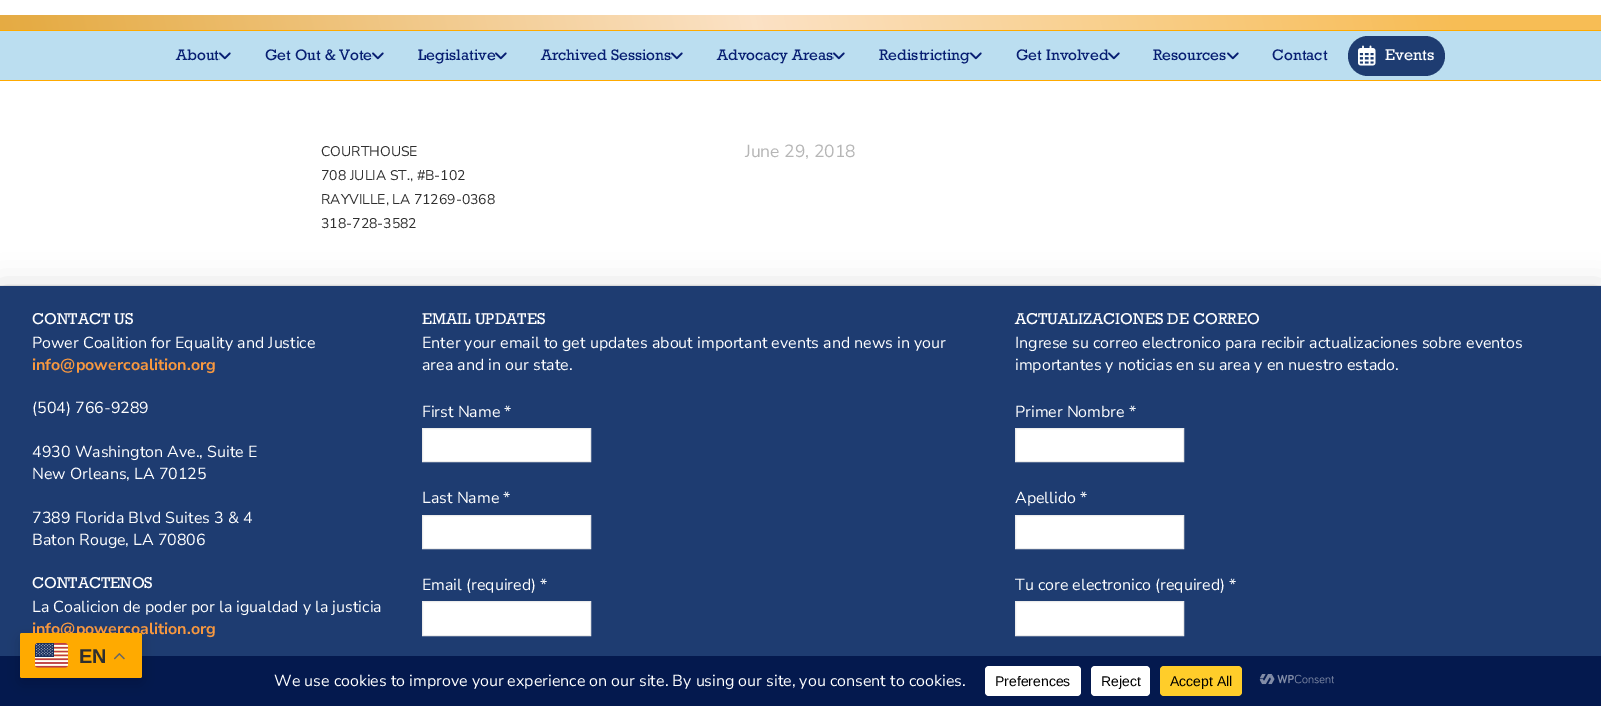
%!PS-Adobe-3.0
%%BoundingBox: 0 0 1601 706
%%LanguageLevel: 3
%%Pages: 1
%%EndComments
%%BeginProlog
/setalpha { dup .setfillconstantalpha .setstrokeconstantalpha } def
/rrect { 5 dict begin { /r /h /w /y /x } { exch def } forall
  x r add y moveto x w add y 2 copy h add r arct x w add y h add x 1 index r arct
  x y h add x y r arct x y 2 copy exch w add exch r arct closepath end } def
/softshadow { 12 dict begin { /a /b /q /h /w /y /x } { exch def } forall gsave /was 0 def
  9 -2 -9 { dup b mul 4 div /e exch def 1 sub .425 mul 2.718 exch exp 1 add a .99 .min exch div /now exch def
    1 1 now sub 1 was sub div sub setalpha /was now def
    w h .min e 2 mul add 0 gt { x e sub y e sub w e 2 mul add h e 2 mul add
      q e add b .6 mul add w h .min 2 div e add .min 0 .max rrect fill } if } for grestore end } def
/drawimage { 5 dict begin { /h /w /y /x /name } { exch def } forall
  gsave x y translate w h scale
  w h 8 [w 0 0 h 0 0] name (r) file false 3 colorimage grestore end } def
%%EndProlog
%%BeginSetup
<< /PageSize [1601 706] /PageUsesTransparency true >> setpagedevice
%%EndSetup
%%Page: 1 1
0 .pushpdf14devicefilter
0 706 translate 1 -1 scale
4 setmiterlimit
1 setgray
0 0 1601 706 rectfill
gsave newpath 0 15 moveto 1601 15 lineto 1601 30 lineto 0 30 lineto closepath clip newpath
<< /ShadingType 2 /ColorSpace /DeviceRGB /Coords [39 198 1562 -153] /Extend [true true] /Function << /FunctionType 3 /Domain [0 1] /Functions [<< /FunctionType 2 /Domain [0 1] /C0 [0.898 0.671 0.263] /C1 [0.984 0.886 0.773] /N 1 >> << /FunctionType 2 /Domain [0 1] /C0 [0.984 0.886 0.773] /C1 [0.969 0.741 0.333] /N 1 >> << /FunctionType 2 /Domain [0 1] /C0 [0.969 0.741 0.333] /C1 [0.969 0.741 0.333] /N 1 >>] /Bounds [0.47 0.92] /Encode [0 1 0 1 0 1] >> >> shfill grestore
gsave newpath 20 15 moveto 1460 15 lineto 1460 30 lineto 20 30 lineto closepath clip newpath
<< /ShadingType 2 /ColorSpace /DeviceRGB /Coords [58 194 1543 -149] /Extend [true true] /Function << /FunctionType 3 /Domain [0 1] /Functions [<< /FunctionType 2 /Domain [0 1] /C0 [0.898 0.671 0.263] /C1 [0.984 0.886 0.773] /N 1 >> << /FunctionType 2 /Domain [0 1] /C0 [0.984 0.886 0.773] /C1 [0.969 0.741 0.333] /N 1 >> << /FunctionType 2 /Domain [0 1] /C0 [0.969 0.741 0.333] /C1 [0.969 0.741 0.333] /N 1 >>] /Bounds [0.47 0.92] /Encode [0 1 0 1 0 1] >> >> shfill grestore
0.733 0.871 0.941 setrgbcolor
0 31 1601 49 rectfill
1 0.667 0 setrgbcolor
0 30 1601 1 rectfill
0 80 1601 1 rectfill
(images/8.raw) 1227 52 12 8 drawimage
0.118 0.235 0.443 setrgbcolor
1348 36 97 40 20 rrect fill
(images/9.raw) 1358 45 18 21 drawimage
0.925 setgray
0 285 1601 1 rectfill
0 setgray
0 288 1601 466 0 16 0.15 softshadow
0.118 0.235 0.443 setrgbcolor
0 286 1601 370 rectfill
1 setgray
newpath 422.5 428.5 moveto 590.5 428.5 lineto 590.5 461.5 lineto 422.5 461.5 lineto closepath gsave fill grestore
0.925 setgray
stroke
1 setgray
newpath 422.5 515.5 moveto 590.5 515.5 lineto 590.5 548.5 lineto 422.5 548.5 lineto closepath gsave fill grestore
0.925 setgray
stroke
1 setgray
newpath 422.5 601.5 moveto 590.5 601.5 lineto 590.5 635.5 lineto 422.5 635.5 lineto closepath gsave fill grestore
0.925 setgray
stroke
1 setgray
newpath 1015.5 428.5 moveto 1183.5 428.5 lineto 1183.5 461.5 lineto 1015.5 461.5 lineto closepath gsave fill grestore
0.925 setgray
stroke
1 setgray
newpath 1015.5 515.5 moveto 1183.5 515.5 lineto 1183.5 548.5 lineto 1015.5 548.5 lineto closepath gsave fill grestore
0.925 setgray
stroke
1 setgray
newpath 1015.5 601.5 moveto 1183.5 601.5 lineto 1183.5 635.5 lineto 1015.5 635.5 lineto closepath gsave fill grestore
0.925 setgray
stroke
0.016 0.098 0.306 setrgbcolor
0 656 1601 50 rectfill
0 setgray
20 638 122 45 2 7.5 0.15 softshadow
1 setgray
985 666 96 30 4 rrect fill
1091 666 59 30 4 rrect fill
1 0.804 0.165 setrgbcolor
1160 666 82 30 4 rrect fill
(images/12.raw) 1259 674 75 11 drawimage
/Rockwell-Regular [15.5 0 0 -15.5 0 0] selectfont
0.027 0.118 0.447 setrgbcolor
176 60 moveto (About) show
(images/1.raw) 219 52 12 8 drawimage
265 60 moveto (Get Out & Vote) show
(images/2.raw) 372 52 12 8 drawimage
418 60 moveto (Legislative) show
(images/3.raw) 495 52 12 8 drawimage
541 60 moveto (Archived Sessions) show
(images/4.raw) 671 52 12 8 drawimage
717 60 moveto (Advocacy Areas) show
(images/5.raw) 833 52 12 8 drawimage
879 60 moveto (Redistricting) show
(images/6.raw) 970 52 12 8 drawimage
1016 60 moveto (Get Involved) show
(images/7.raw) 1108 52 12 8 drawimage
1153 60 moveto (Resources) show
1272 60 moveto (Contact) show
/Rockwell-Regular [16 0 0 -16 0 0] selectfont
1 setgray
1385 60 moveto (Events) show
/NunitoSans-Regular [14 0 0 -14 0 0] selectfont
0.184 setgray
321 156 moveto (COURTHOUSE) show
321 180 moveto (708 JULIA ST., #B-102) show
321 204 moveto (RAYVILLE, LA 71269-0368) show
321 228 moveto (318-728-3582) show
/NunitoSans-Regular [17.5 0 0 -17.5 0 0] selectfont
0.714 setgray
745 157 moveto (June 29, 2018) show
/Rockwell-Regular [16 0 0 -16 0 0] selectfont
1 setgray
32 324 moveto (CONTACT US) show
/NunitoSans-Regular [16 0 0 -16 0 0] selectfont
32 348 moveto (Power Coalition for Equality and Justice) show
/NunitoSans-Bold [16 0 0 -16 0 0] selectfont
0.973 0.596 0.247 setrgbcolor
32 370 moveto (info@powercoalition.org) show
/NunitoSans-Regular [16 0 0 -16 0 0] selectfont
1 setgray
32 413 moveto (\(504\) 766-9289) show
32 457 moveto (4930 Washington Ave., Suite E) show
32 479 moveto (New Orleans, LA 70125) show
32 523 moveto (7389 Florida Blvd Suites 3 & 4) show
32 545 moveto (Baton Rouge, LA 70806) show
/Rockwell-Regular [16 0 0 -16 0 0] selectfont
32 588 moveto (CONTACTENOS) show
/NunitoSans-Regular [16 0 0 -16 0 0] selectfont
32 612 moveto (La Coalicion de poder por la igualdad y la justicia) show
/NunitoSans-Bold [16 0 0 -16 0 0] selectfont
0.973 0.596 0.247 setrgbcolor
32 634 moveto (info@powercoalition.org) show
/Rockwell-Regular [16 0 0 -16 0 0] selectfont
1 setgray
422 324 moveto (EMAIL UPDATES) show
/NunitoSans-Regular [16 0 0 -16 0 0] selectfont
422 348 moveto (Enter your email to get updates about important events and news in your) show
422 370 moveto (area and in our state.) show
422 417 moveto (First Name *) show
422 503 moveto (Last Name *) show
422 590 moveto (Email \(required\) *) show
/Rockwell-Regular [16 0 0 -16 0 0] selectfont
1015 324 moveto (ACTUALIZACIONES DE CORREO) show
/NunitoSans-Regular [16 0 0 -16 0 0] selectfont
1015 348 moveto (Ingrese su correo electronico para recibir actualizaciones sobre eventos) show
1015 370 moveto (importantes y noticias en su area y en nuestro estado.) show
1015 417 moveto (Primer Nombre *) show
1015 503 moveto (Apellido *) show
1015 590 moveto (Tu core electronico \(required\) *) show
1 0.667 0 setrgbcolor
20 633 122 45 2 rrect fill
(images/10.raw) 35 643 33 25 drawimage
/LiberationSans-Bold [20 0 0 -20 0 0] selectfont
0.184 setgray
79 663 moveto (EN) show
(images/11.raw) 114 653 11 7 drawimage
/NunitoSans-Regular [16 0 0 -16 0 0] selectfont
1 setgray
274 686 moveto (We use cookies to improve your experience on our site. By using our site, you consent to cookies.) show
/LiberationSans-Regular [14 0 0 -14 0 0] selectfont
0 setgray
995 686 moveto (Preferences) show
1101 686 moveto (Reject) show
1170 686 moveto (Accept All) show
.poppdf14devicefilter showpage
%%EOF
